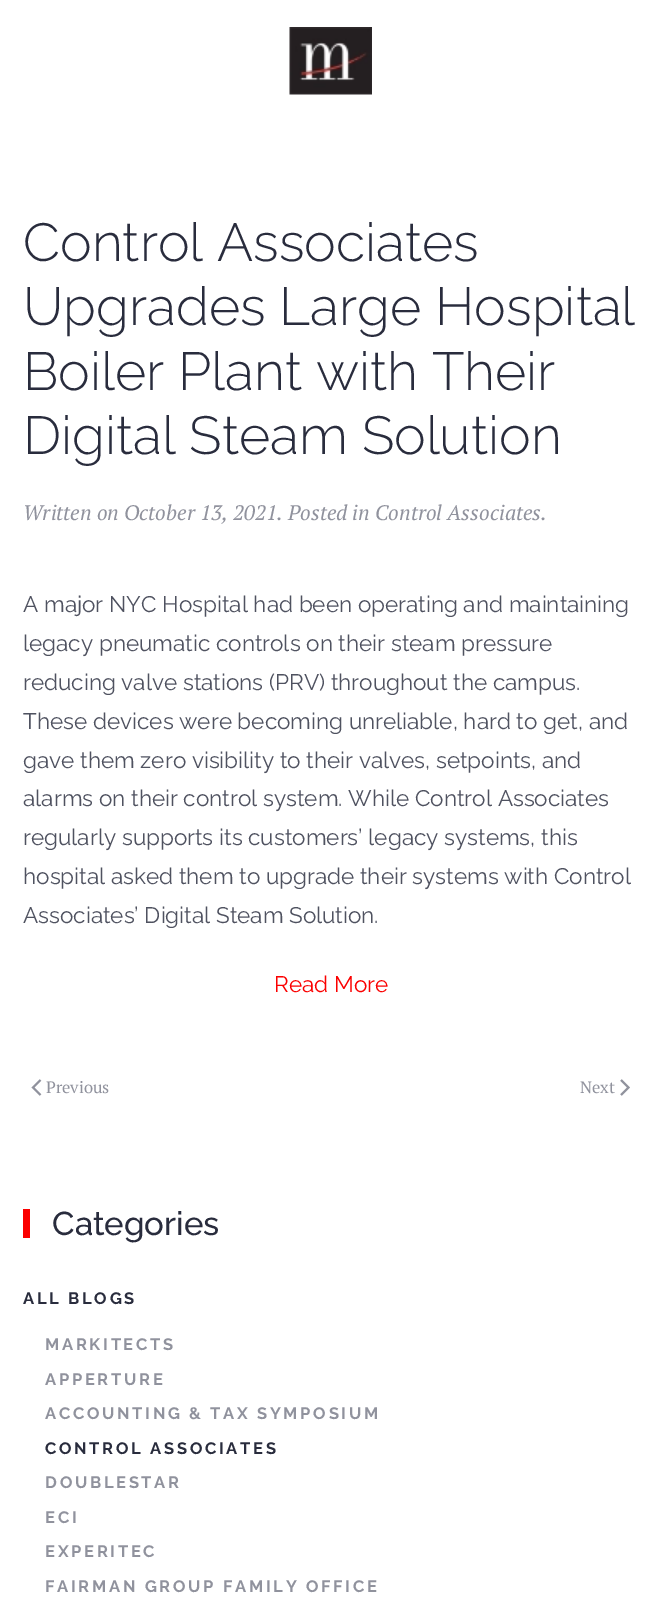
%!PS-Adobe-3.0
%%BoundingBox: 0 0 661 1609
%%LanguageLevel: 3
%%Pages: 1
%%EndComments
%%BeginProlog
/drawimage { 5 dict begin { /h /w /y /x /name } { exch def } forall
  gsave x y translate w h scale
  w h 8 [w 0 0 h 0 0] name (r) file false 3 colorimage grestore end } def
%%EndProlog
%%BeginSetup
<< /PageSize [661 1609] >> setpagedevice
%%EndSetup
%%Page: 1 1
0 1609 translate 1 -1 scale
4 setmiterlimit
1 setgray
0 0 661 1609 rectfill
(images/1.raw) 289 27 83 68 drawimage
0.565 0.573 0.616 setrgbcolor
1.8 setlinewidth
newpath 40.5 1080 moveto 33 1087.5 lineto 40.5 1095 lineto stroke
newpath 621 1080 moveto 628.5 1087.5 lineto 621 1095 lineto stroke
0.984 0 0 setrgbcolor
23 1209 7 29 rectfill
/Raleway-Thin [53.5 0 0 -53.5 0 0] selectfont
0.161 0.173 0.239 setrgbcolor
23 261 moveto (Control Associates) show
23 325 moveto (Upgrades Large Hospital) show
23 390 moveto (Boiler Plant with Their) show
23 454 moveto (Digital Steam Solution) show
/PTSerif-Italic [21 0 0 -21 0 0] selectfont
0.565 0.573 0.616 setrgbcolor
23 520 moveto (Written on October 13, 2021. Posted in Control Associates.) show
/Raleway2-Thin [22.5 0 0 -22.5 0 0] selectfont
0.31 0.322 0.376 setrgbcolor
23 612 moveto (A major NYC Hospital had been operating and maintaining) show
23 651 moveto (legacy pneumatic controls on their steam pressure) show
23 690 moveto (reducing valve stations \(PRV\) throughout the campus.) show
23 729 moveto (These devices were becoming unreliable, hard to get, and) show
23 768 moveto (gave them zero visibility to their valves, setpoints, and) show
23 806 moveto (alarms on their control system. While Control Associates) show
23 845 moveto (regularly supports its customers’ legacy systems, this) show
23 884 moveto (hospital asked them to upgrade their systems with Control) show
23 923 moveto (Associates’ Digital Steam Solution.) show
0.984 0 0 setrgbcolor
274 992 moveto (Read More) show
/PTSerif-Regular [16.5 0 0 -16.5 0 0] selectfont
0.565 0.573 0.616 setrgbcolor
46 1093 moveto (Previous) show
580 1093 moveto (Next) show
/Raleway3-Thin [33 0 0 -33 0 0] selectfont
0.161 0.173 0.239 setrgbcolor
52 1235 moveto (Categories) show
/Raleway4-Thin [16.5 0 0 -16.5 0 0] selectfont
23 1304 moveto 2.7 0 (ALL BLOGS) ashow
0.565 0.573 0.616 setrgbcolor
45 1350 moveto 2.7 0 (MARKITECTS) ashow
45 1385 moveto 2.7 0 (APPERTURE) ashow
45 1419 moveto 2.7 0 (ACCOUNTING & TAX SYMPOSIUM) ashow
0.161 0.173 0.239 setrgbcolor
45 1454 moveto 2.7 0 (CONTROL ASSOCIATES) ashow
0.565 0.573 0.616 setrgbcolor
45 1488 moveto 2.7 0 (DOUBLESTAR) ashow
45 1523 moveto 2.7 0 (ECI) ashow
45 1557 moveto 2.7 0 (EXPERITEC) ashow
45 1592 moveto 2.7 0 (FAIRMAN GROUP FAMILY OFFICE) ashow
showpage
%%EOF
